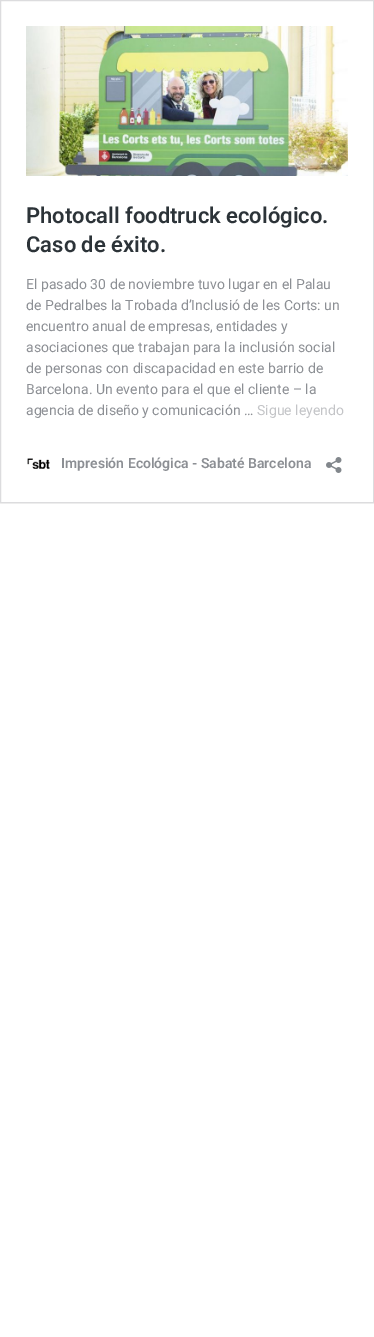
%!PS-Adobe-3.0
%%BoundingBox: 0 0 374 1337
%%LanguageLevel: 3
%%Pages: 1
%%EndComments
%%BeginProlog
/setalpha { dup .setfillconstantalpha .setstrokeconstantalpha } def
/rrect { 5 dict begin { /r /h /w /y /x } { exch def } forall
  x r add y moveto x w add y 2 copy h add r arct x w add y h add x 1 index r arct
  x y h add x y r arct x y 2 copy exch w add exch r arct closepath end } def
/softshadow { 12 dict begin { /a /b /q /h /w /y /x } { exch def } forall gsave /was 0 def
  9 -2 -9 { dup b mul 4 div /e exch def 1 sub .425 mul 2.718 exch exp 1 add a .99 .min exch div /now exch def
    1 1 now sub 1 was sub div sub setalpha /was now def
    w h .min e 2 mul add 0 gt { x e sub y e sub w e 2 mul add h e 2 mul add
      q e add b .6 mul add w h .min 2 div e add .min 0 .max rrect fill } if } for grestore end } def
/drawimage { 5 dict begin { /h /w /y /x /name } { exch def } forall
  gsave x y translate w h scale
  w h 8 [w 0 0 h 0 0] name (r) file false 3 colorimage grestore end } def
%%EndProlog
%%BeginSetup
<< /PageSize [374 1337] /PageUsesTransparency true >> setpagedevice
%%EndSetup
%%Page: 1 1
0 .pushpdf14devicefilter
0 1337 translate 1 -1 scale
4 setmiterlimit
1 setgray
0 0 374 1337 rectfill
gsave
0 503 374 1 rectclip
0 setgray
0 1 374 503 0 0.5 0.05 softshadow
grestore
0.863 0.863 0.871 setrgbcolor
0.5 0.5 373 502 rectstroke
(images/1.raw) 26 26 322 150 drawimage
(images/2.raw) 27 458 23 11 drawimage
(images/3.raw) 326 457 16 16 drawimage
/Roboto-SemiBold [22 0 0 -22 0 0] selectfont
0.173 0.2 0.22 setrgbcolor
26 223 moveto (Photocall foodtruck ecológico.) show
26 252 moveto (Caso de éxito.) show
/Roboto-Regular [14 0 0 -14 0 0] selectfont
0.549 0.561 0.58 setrgbcolor
26 289 moveto (El pasado 30 de noviembre tuvo lugar en el Palau) show
26 310 moveto (de Pedralbes la Trobada d’Inclusió de les Corts: un) show
26 331 moveto (encuentro anual de empresas, entidades y) show
26 352 moveto (asociaciones que trabajan para la inclusión social) show
26 373 moveto (de personas con discapacidad en este barrio de) show
26 394 moveto (Barcelona. Un evento para el que el cliente – la) show
26 415 moveto (agencia de diseño y comunicación …) show
0.765 0.769 0.78 setrgbcolor
257 415 moveto (Sigue leyendo) show
/Roboto-SemiBold [14 0 0 -14 0 0] selectfont
0.549 0.561 0.58 setrgbcolor
61 468 moveto (Impresión Ecológica - Sabaté Barcelona) show
.poppdf14devicefilter showpage
%%EOF
